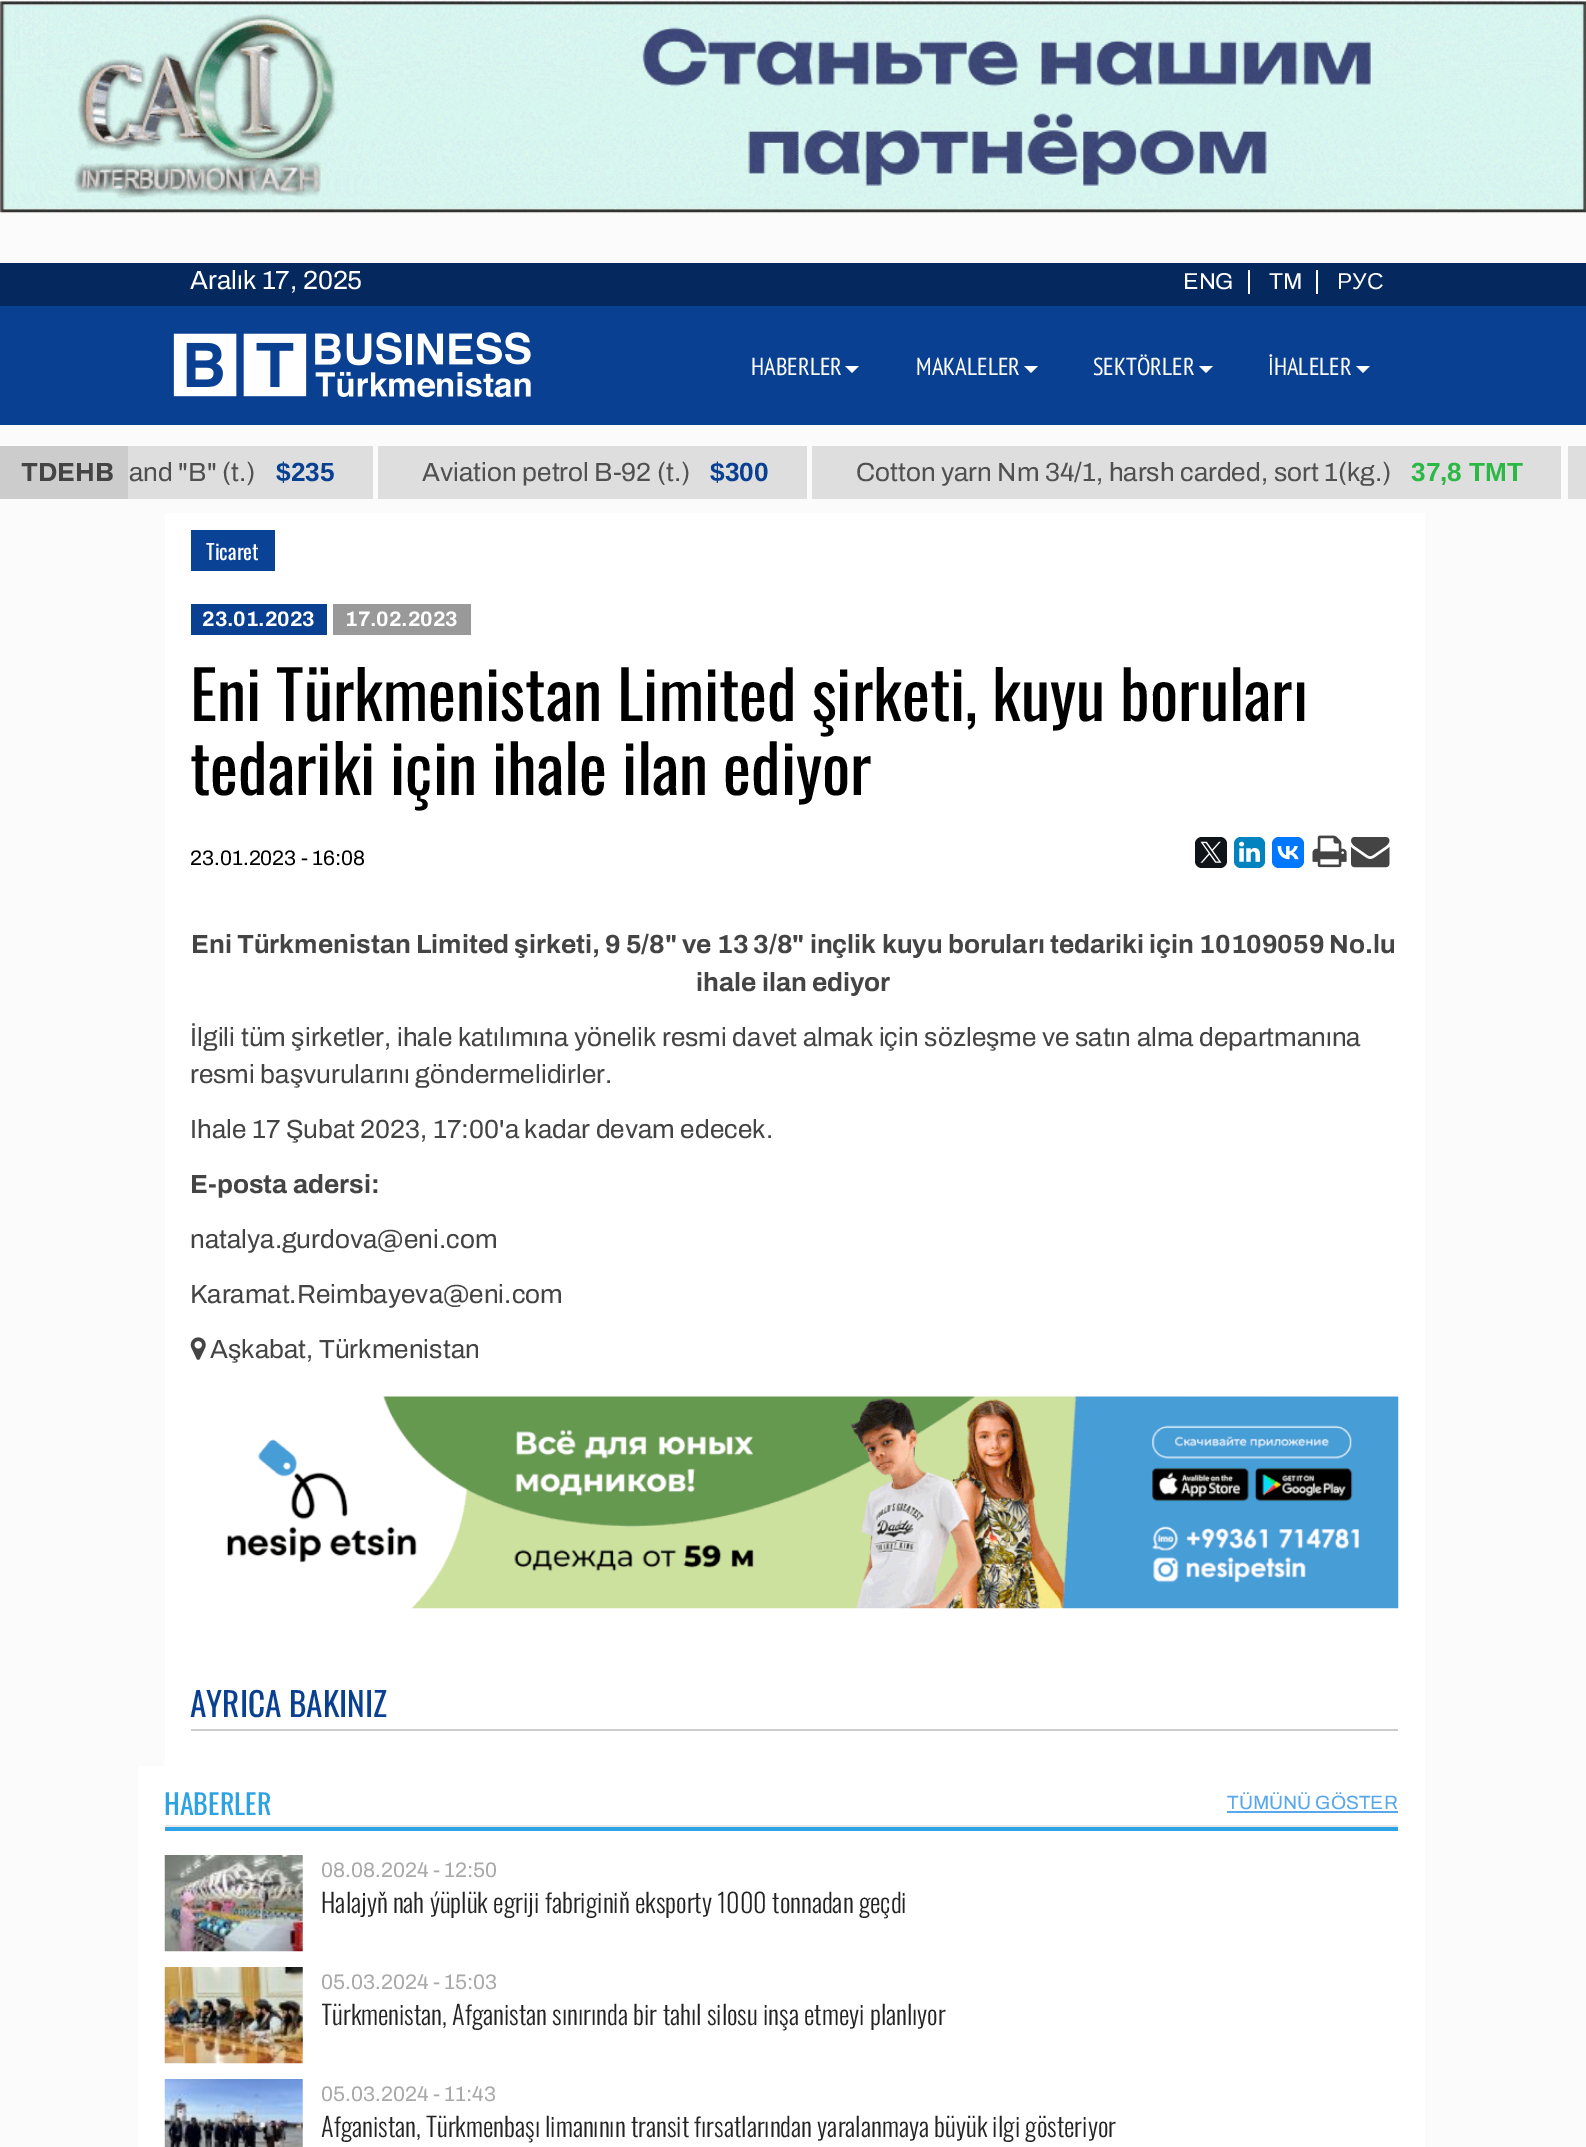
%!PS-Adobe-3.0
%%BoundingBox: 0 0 1586 2147
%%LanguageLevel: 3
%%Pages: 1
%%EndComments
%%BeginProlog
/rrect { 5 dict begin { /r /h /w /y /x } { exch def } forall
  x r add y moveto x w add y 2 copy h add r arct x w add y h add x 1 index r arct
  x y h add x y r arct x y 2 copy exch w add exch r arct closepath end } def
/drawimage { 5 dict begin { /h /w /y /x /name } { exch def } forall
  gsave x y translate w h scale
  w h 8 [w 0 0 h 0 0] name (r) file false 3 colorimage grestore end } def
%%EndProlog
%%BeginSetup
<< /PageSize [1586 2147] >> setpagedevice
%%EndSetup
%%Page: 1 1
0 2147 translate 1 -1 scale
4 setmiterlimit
0.984 setgray
0 0 1586 2147 rectfill
(images/1.raw) 0 0 1586 214 drawimage
0.035 0.251 0.569 setrgbcolor
0 306 1586 119 rectfill
0.02 0.161 0.373 setrgbcolor
0 263 1586 43 rectfill
1 setgray
1248 270 2 24 rectfill
1316 270 2 24 rectfill
(images/2.raw) 173 332 358 66 drawimage
newpath 845 366 moveto 859 366 lineto 852 373 lineto closepath fill
newpath 1024 366 moveto 1038 366 lineto 1031 373 lineto closepath fill
newpath 1199 366 moveto 1213 366 lineto 1206 373 lineto closepath fill
newpath 1356 366 moveto 1370 366 lineto 1363 373 lineto closepath fill
0.8 setgray
0 446 128 53 rectfill
0.871 setgray
128 446 245 53 rectfill
378 446 429 53 rectfill
812 446 749 53 rectfill
1568 446 18 53 rectfill
1 setgray
165 513 1260 1253 rectfill
0.039 0.263 0.588 setrgbcolor
191 530 84 41 rectfill
0.035 0.251 0.569 setrgbcolor
191 604 136 31 rectfill
0.6 setgray
333 604 138 31 rectfill
0.059 0.078 0.098 setrgbcolor
1195 837 32 31 7 rrect fill
(images/3.raw) 1200 841 22 22 drawimage
0 0.514 0.745 setrgbcolor
1234 837 31 31 7 rrect fill
(images/4.raw) 1239 841 21 21 drawimage
0 0.467 1 setrgbcolor
1272 837 32 31 7 rrect fill
(images/5.raw) 1277 846 22 14 drawimage
(images/6.raw) 1312 835 35 33 drawimage
(images/7.raw) 1351 837 39 31 drawimage
(images/8.raw) 190 1337 16 23 drawimage
(images/9.raw) 226 1396 1173 213 drawimage
0.8 setgray
191 1729 1207 2 rectfill
1 setgray
138 1766 1287 381 rectfill
0.176 0.635 0.898 setrgbcolor
165 1827 1233 4 rectfill
0.906 setgray
165 1825 1233 2 rectfill
0.341 0.655 0.925 setrgbcolor
1227 1811 171 2 rectfill
(images/10.raw) 164 1855 139 97 drawimage
(images/11.raw) 164 1967 139 97 drawimage
(images/12.raw) 164 2079 139 68 drawimage
/Archivo-Regular [26.25 0 0 -26.25 0 0] selectfont
1 setgray
190 289 moveto (Aralık 17, 2025) show
/Archivo-Regular [23 0 0 -23 0 0] selectfont
1183 289 moveto (ENG) show
1269 289 moveto (TM) show
/LiberationSans-Regular [23 0 0 -23 0 0] selectfont
1337 289 moveto (РУС) show
/PTSansNarrow-Regular [24.5 0 0 -24.5 0 0] selectfont
751 375 moveto (HABERLER) show
916 375 moveto (MAKALELER) show
1093 375 moveto (SEKTÖRLER) show
1268 375 moveto (İHALELER) show
/Archivo-Bold [26.25 0 0 -26.25 0 0] selectfont
0.267 setgray
21 481 moveto (TDEHB) show
/Archivo-Regular [26.25 0 0 -26.25 0 0] selectfont
0.314 setgray
129 481 moveto (and "B" \(t.\)) show
/LiberationSans-Bold [26.25 0 0 -26.25 0 0] selectfont
0.035 0.251 0.569 setrgbcolor
276 481 moveto ($235) show
/Archivo-Regular [26.25 0 0 -26.25 0 0] selectfont
0.314 setgray
422 481 moveto (Aviation petrol B-92 \(t.\)) show
/LiberationSans-Bold [26.25 0 0 -26.25 0 0] selectfont
0.035 0.251 0.569 setrgbcolor
710 481 moveto ($300) show
/Archivo-Regular [26.25 0 0 -26.25 0 0] selectfont
0.314 setgray
856 481 moveto (Cotton yarn Nm 34/1, harsh carded, sort 1\(kg.\)) show
/LiberationSans-Bold [26.25 0 0 -26.25 0 0] selectfont
0.169 0.722 0.271 setrgbcolor
1411 481 moveto (37,8 ТМТ) show
/Oswald-Regular [21 0 0 -21 0 0] selectfont
1 setgray
206 560 moveto (Ticaret) show
/Archivo-Bold [21 0 0 -21 0 0] selectfont
202 626 moveto (23.01.2023) show
345 626 moveto (17.02.2023) show
/Oswald-Regular [66.5 0 0 -66.5 0 0] selectfont
0 setgray
190 721 moveto -0.5 0 32 (Eni Türkmenistan Limited şirketi, kuyu boruları) widthshow
190 795 moveto -0.5 0 32 (tedariki için ihale ilan ediyor) widthshow
/Archivo-Regular [21 0 0 -21 0 0] selectfont
190 865 moveto (23.01.2023 - 16:08) show
/Archivo-Bold [26.25 0 0 -26.25 0 0] selectfont
0.267 setgray
191 953 moveto (Eni Türkmenistan Limited şirketi, 9 5/8" ve 13 3/8" inçlik kuyu boruları tedariki için 10109059 No.lu) show
696 991 moveto (ihale ilan ediyor) show
/Archivo-Regular [26.25 0 0 -26.25 0 0] selectfont
190 1046 moveto (İlgili tüm şirketler, ihale katılımına yönelik resmi davet almak için sözleşme ve satın alma departmanına) show
190 1083 moveto (resmi başvurularını göndermelidirler.) show
190 1138 moveto (Ihale 17 Şubat 2023, 17:00'a kadar devam edecek.) show
/Archivo-Bold [26.25 0 0 -26.25 0 0] selectfont
190 1193 moveto (E-posta adersi:) show
/Archivo-Regular [26.25 0 0 -26.25 0 0] selectfont
190 1248 moveto (natalya.gurdova@eni.com) show
190 1303 moveto (Karamat.Reimbayeva@eni.com) show
210 1358 moveto (Aşkabat, Türkmenistan) show
/Oswald-Regular [33.25 0 0 -33.25 0 0] selectfont
0.035 0.251 0.569 setrgbcolor
190 1717 moveto (AYRICA BAKINIZ) show
/Oswald-Regular [28 0 0 -28 0 0] selectfont
0.176 0.635 0.898 setrgbcolor
164 1815 moveto (HABERLER) show
/Archivo-Regular [19.25 0 0 -19.25 0 0] selectfont
0.341 0.655 0.925 setrgbcolor
1227 1809 moveto (TÜMÜNÜ GÖSTER) show
/Archivo-Regular [21 0 0 -21 0 0] selectfont
0.663 setgray
321 1877 moveto (08.08.2024 - 12:50) show
/Oswald-Light [26.25 0 0 -26.25 0 0] selectfont
0.137 setgray
321 1913 moveto (Halajyň nah ýüplük egriji fabriginiň eksporty 1000 tonnadan geçdi) show
/Archivo-Regular [21 0 0 -21 0 0] selectfont
0.663 setgray
321 1989 moveto (05.03.2024 - 15:03) show
gsave
322 1967 1076 67 rectclip
/Oswald-Light [26.25 0 0 -26.25 0 0] selectfont
0.137 setgray
321 2025 moveto (Türkmenistan, Afganistan sınırında bir tahıl silosu inşa etmeyi planlıyor) show
grestore
321 2101 moveto (05.03.2024 - 11:43) show
/Oswald-Light [26.25 0 0 -26.25 0 0] selectfont
0.137 setgray
321 2137 moveto (Afganistan, Türkmenbaşı limanının transit fırsatlarından yaralanmaya büyük ilgi gösteriyor) show
showpage
%%EOF
